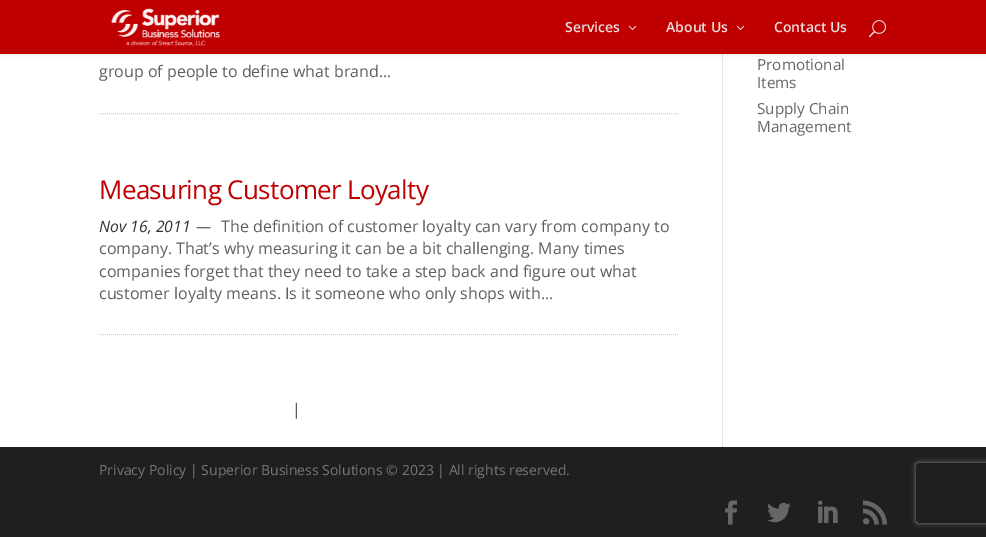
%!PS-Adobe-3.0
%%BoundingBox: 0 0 986 537
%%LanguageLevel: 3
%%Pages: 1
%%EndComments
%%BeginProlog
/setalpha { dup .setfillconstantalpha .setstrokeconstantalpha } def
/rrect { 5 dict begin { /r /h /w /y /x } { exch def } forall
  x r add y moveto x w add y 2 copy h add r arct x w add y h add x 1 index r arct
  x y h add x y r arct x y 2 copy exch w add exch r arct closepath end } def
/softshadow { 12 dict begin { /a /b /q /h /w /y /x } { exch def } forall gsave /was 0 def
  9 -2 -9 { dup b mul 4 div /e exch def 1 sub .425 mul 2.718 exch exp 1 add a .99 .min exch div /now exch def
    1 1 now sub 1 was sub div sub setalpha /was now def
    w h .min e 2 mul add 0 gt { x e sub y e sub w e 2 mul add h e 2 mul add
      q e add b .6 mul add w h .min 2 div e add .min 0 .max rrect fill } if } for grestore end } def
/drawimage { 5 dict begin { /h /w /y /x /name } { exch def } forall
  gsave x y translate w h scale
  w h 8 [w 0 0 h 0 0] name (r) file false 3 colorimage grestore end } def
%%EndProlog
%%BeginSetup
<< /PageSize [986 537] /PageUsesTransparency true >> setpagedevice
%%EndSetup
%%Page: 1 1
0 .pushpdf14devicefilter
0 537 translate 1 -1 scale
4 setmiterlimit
1 setgray
0 0 986 537 rectfill
0.886 setgray
722 54 1 393 rectfill
0 setgray
0 0 986 54 0 3.5 0.1 softshadow
0.753 0 0 setrgbcolor
0 0 986 54 rectfill
(images/1.raw) 111 8 109 38 drawimage
(images/2.raw) 628 25 9 5 drawimage
(images/2.raw) 736 25 9 5 drawimage
(images/3.raw) 869 20 17 18 drawimage
0.8 setgray
[1 1] 0 setdash
newpath 99 113.5 moveto 679 113.5 lineto stroke
newpath 99 334.5 moveto 679 334.5 lineto stroke
0.122 setgray
0 447 986 90 rectfill
(images/4.raw) 725 500 12 25 drawimage
(images/5.raw) 767 502 24 21 drawimage
(images/6.raw) 818 500 20 23 drawimage
(images/7.raw) 863 500 24 25 drawimage
gsave
newpath 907 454 moveto 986 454 lineto 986 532 lineto 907 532 lineto closepath 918 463 moveto 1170 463 lineto 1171 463 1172 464 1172 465 curveto 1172 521 lineto 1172 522 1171 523 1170 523 curveto 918 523 lineto 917 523 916 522 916 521 curveto 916 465 lineto 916 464 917 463 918 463 curveto closepath eoclip newpath
0.502 setgray
916 463 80 60 2 2.5 1 softshadow
grestore
/OpenSans-SemiBold [14 0 0 -14 0 0] selectfont
0.914 0.878 0.871 setrgbcolor
565 32 moveto (Services) show
666 32 moveto (About Us) show
774 32 moveto (Contact Us) show
/OpenSans-Regular [16 0 0 -16 0 0] selectfont
0.365 setgray
99 77 moveto (group of people to define what brand...) show
/OpenSans-Regular [26 0 0 -26 0 0] selectfont
0.753 0 0 setrgbcolor
99 199 moveto -0.65 0 (Measuring Customer Loyalty) ashow
/OpenSans-Italic [15.75 0 0 -15.75 0 0] selectfont
0.2 setgray
99 232 moveto (Nov 16, 2011) show
196 232 moveto (—) show
/OpenSans-Regular [16 0 0 -16 0 0] selectfont
0.365 setgray
221 232 moveto (The definition of customer loyalty can vary from company to) show
99 254 moveto (company. That’s why measuring it can be a bit challenging. Many times) show
99 277 moveto (companies forget that they need to take a step back and figure out what) show
99 299 moveto (customer loyalty means. Is it someone who only shops with...) show
292 415 moveto (|) show
/OpenSans-Regular [15.25 0 0 -15.25 0 0] selectfont
0.4 setgray
757 70 moveto (Promotional) show
757 88 moveto (Items) show
757 114 moveto (Supply Chain) show
757 132 moveto (Management) show
/OpenSans-Regular [14 0 0 -14 0 0] selectfont
0.467 setgray
99 475 moveto (Privacy Policy) show
190 475 moveto (| Superior Business Solutions © 2023 | All rights reserved.) show
.poppdf14devicefilter showpage
%%EOF
